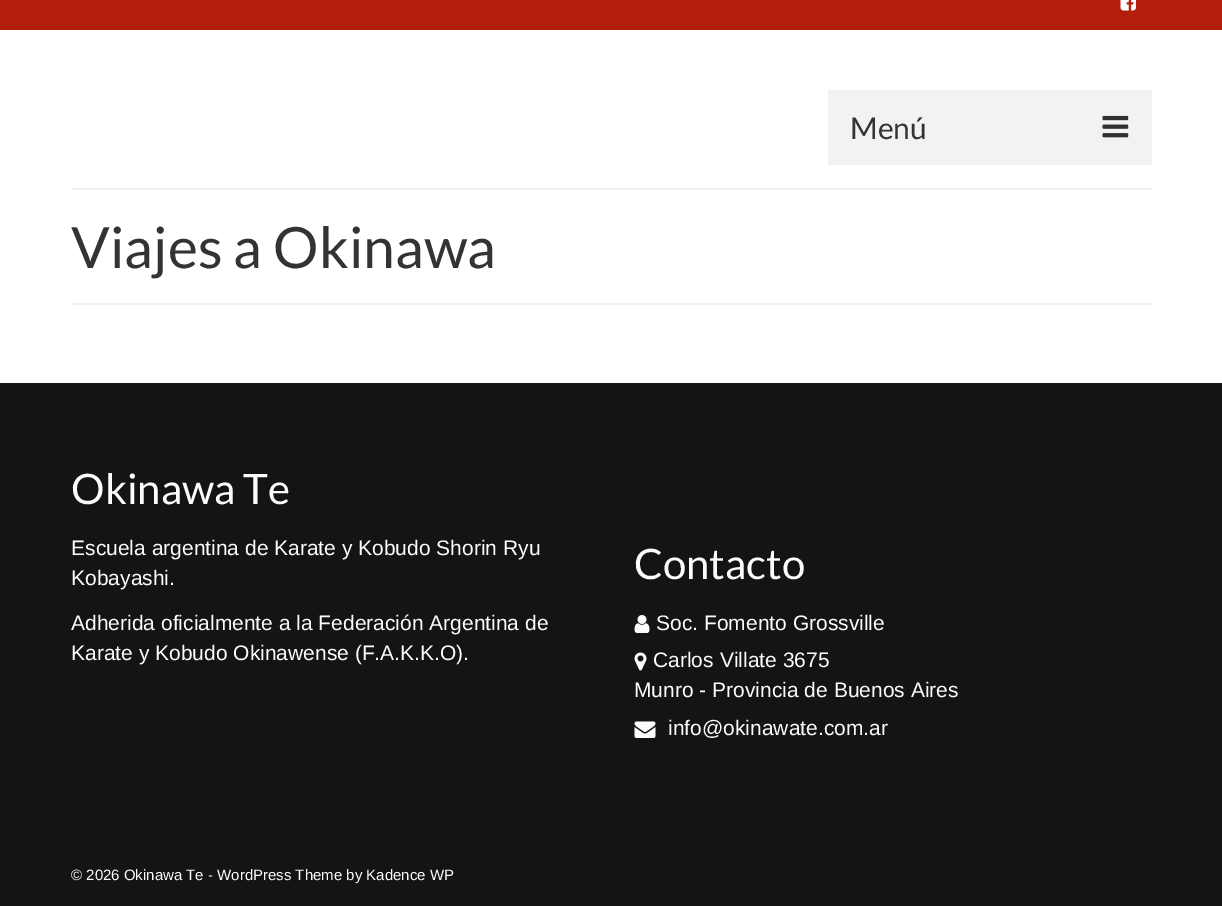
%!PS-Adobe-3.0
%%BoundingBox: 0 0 1222 906
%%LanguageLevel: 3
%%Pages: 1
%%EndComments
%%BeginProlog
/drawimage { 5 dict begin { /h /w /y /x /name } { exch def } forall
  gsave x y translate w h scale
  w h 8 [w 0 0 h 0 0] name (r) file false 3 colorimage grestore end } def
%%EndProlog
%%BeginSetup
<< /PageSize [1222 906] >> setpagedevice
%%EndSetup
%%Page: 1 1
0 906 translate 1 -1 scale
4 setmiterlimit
1 setgray
0 0 1222 906 rectfill
0.698 0.114 0.047 setrgbcolor
0 0 1222 30 rectfill
(images/1.raw) 1120 0 16 11 drawimage
0.949 setgray
828 90 324 75 rectfill
(images/2.raw) 1102 115 27 23 drawimage
72 188 1080 2 rectfill
72 303 1080 2 rectfill
0.078 setgray
0 383 1222 523 rectfill
(images/3.raw) 634 615 16 18 drawimage
(images/4.raw) 634 652 13 19 drawimage
(images/5.raw) 634 721 22 17 drawimage
/Lato-Regular [30 0 0 -30 0 0] selectfont
0.2 setgray
850 139 moveto (Menú) show
/Lato-Regular [57 0 0 -57 0 0] selectfont
71 268 moveto (Viajes a Okinawa) show
/Lato-Regular [42 0 0 -42 0 0] selectfont
0.988 setgray
71 504 moveto (Okinawa Te) show
/LiberationSans-Regular [21 0 0 -21 0 0] selectfont
71 555 moveto (Escuela argentina de Karate y Kobudo Shorin Ryu) show
71 585 moveto (Kobayashi.) show
71 630 moveto (Adherida oficialmente a la Federación Argentina de) show
71 660 moveto (Karate y Kobudo Okinawense \(F.A.K.K.O\).) show
/Lato-Regular [42 0 0 -42 0 0] selectfont
634 579 moveto (Contacto) show
/LiberationSans-Regular [21 0 0 -21 0 0] selectfont
656 630 moveto (Soc. Fomento Grossville) show
653 667 moveto (Carlos Villate 3675) show
634 697 moveto (Munro - Provincia de Buenos Aires) show
668 735 moveto (info@okinawate.com.ar) show
/LiberationSans-Regular [15 0 0 -15 0 0] selectfont
71 880 moveto (© 2026 Okinawa Te - WordPress Theme by Kadence WP) show
showpage
%%EOF
